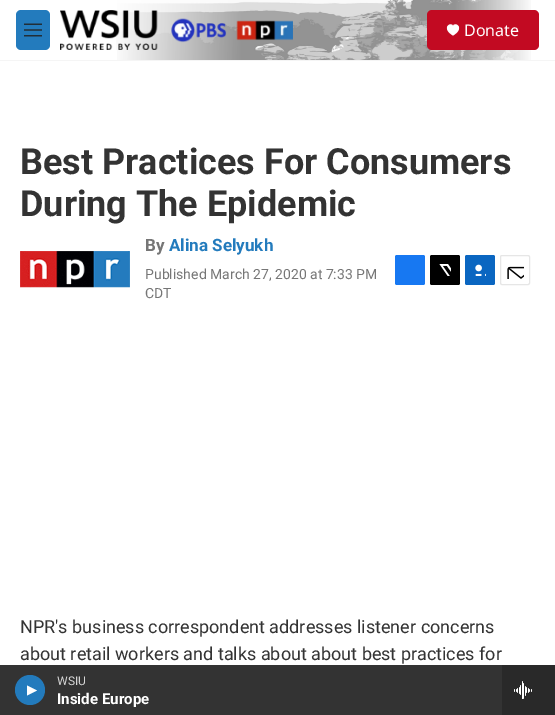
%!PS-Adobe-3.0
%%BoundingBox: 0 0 555 715
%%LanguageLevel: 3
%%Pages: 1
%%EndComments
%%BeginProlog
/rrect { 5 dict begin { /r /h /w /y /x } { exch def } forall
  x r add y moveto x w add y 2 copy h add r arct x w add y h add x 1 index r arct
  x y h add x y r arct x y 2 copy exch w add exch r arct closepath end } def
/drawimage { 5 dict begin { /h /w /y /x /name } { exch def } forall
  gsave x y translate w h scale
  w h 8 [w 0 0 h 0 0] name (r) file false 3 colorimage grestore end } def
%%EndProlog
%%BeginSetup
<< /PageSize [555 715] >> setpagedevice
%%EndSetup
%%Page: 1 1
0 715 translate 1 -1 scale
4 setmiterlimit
1 setgray
0 0 555 715 rectfill
0.961 setgray
0 60 555 1 rectfill
(images/1.raw) 117 0 414 60 drawimage
0.137 0.482 0.741 setrgbcolor
16 10 34 40 5 rrect fill
(images/2.raw) 24 23 18 14 drawimage
(images/3.raw) 60 10 233 40 drawimage
0.761 0.039 0.133 setrgbcolor
427 10 112 40 5 rrect fill
1 setgray
newpath 453 26 moveto 451 21 440.5 28 453 35.5 curveto 465.5 28 455 21 453 26 curveto closepath fill
0.2 setgray
0 665 502 50 rectfill
0.137 0.482 0.741 setrgbcolor
newpath 30 690 15 0 360 arc closepath fill
1 setgray
newpath 27 685.5 moveto 37 690.5 lineto 27 695.5 lineto closepath fill
0.161 setgray
502 665 53 50 rectfill
(images/4.raw) 514 681 18 18 drawimage
(images/5.raw) 20 251 110 37 drawimage
0.09 0.471 0.949 setrgbcolor
395 255 30 30 2 rrect fill
0 setgray
430 255 30 30 2 rrect fill
(images/6.raw) 439 264 12 12 drawimage
0.039 0.4 0.757 setrgbcolor
465 255 30 30 2 rrect fill
(images/7.raw) 475 264 11 12 drawimage
0.902 setgray
500.5 255.5 29 29 1.5 rrect stroke
(images/8.raw) 507 266 17 13 drawimage
/NotoSans-Regular [16 0 0 -16 0 0] selectfont
1 setgray
464 36 moveto (Donate) show
/Roboto-Regular [12 0 0 -12 0 0] selectfont
0.839 setgray
57 685 moveto (WSIU) show
/Roboto-Bold [15 0 0 -15 0 0] selectfont
1 setgray
57 704 moveto (Inside Europe) show
/Roboto-Bold [36 0 0 -36 0 0] selectfont
0.2 setgray
20 174 moveto (Best Practices For Consumers) show
20 216 moveto (During The Epidemic) show
/Roboto-Bold [17 0 0 -17 0 0] selectfont
0.463 setgray
145 251 moveto (By) show
0.137 0.482 0.741 setrgbcolor
169 251 moveto (Alina Selyukh) show
/Roboto-Regular [14 0 0 -14 0 0] selectfont
0.463 setgray
145 279 moveto (Published March 27, 2020 at 7:33 PM) show
145 298 moveto (CDT) show
/Roboto-Regular [18 0 0 -18 0 0] selectfont
0.2 setgray
20 633 moveto (NPR's business correspondent addresses listener concerns) show
20 660 moveto (about retail workers and talks about about best practices for) show
showpage
%%EOF
